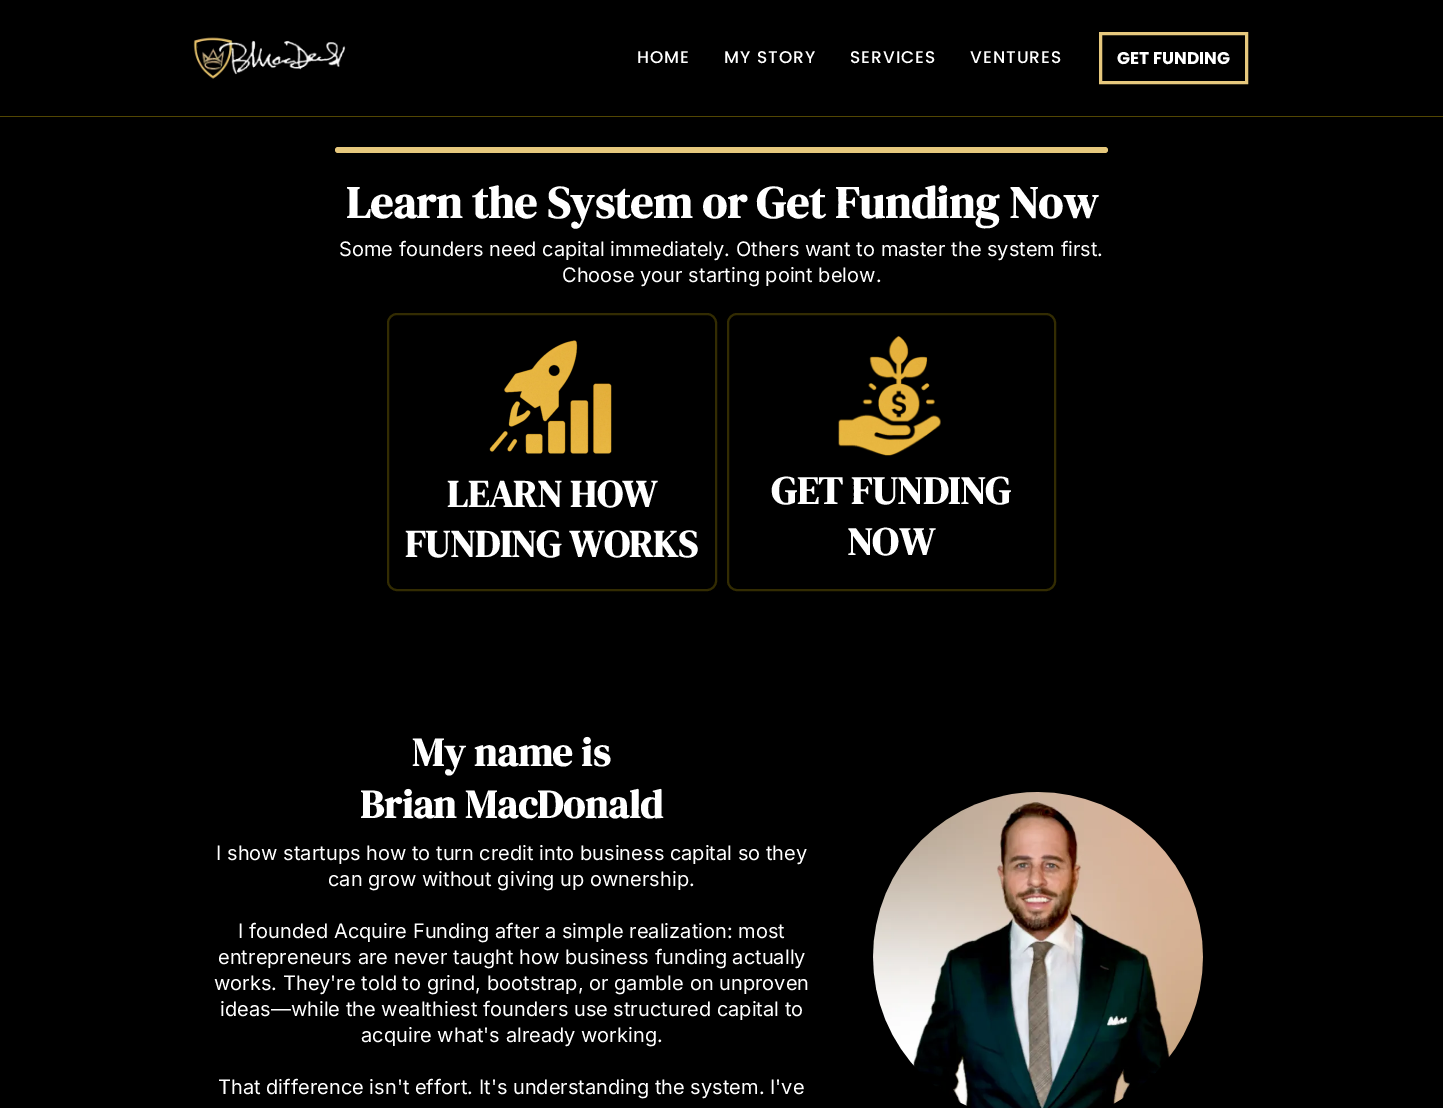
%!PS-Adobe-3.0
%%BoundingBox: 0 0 1443 1108
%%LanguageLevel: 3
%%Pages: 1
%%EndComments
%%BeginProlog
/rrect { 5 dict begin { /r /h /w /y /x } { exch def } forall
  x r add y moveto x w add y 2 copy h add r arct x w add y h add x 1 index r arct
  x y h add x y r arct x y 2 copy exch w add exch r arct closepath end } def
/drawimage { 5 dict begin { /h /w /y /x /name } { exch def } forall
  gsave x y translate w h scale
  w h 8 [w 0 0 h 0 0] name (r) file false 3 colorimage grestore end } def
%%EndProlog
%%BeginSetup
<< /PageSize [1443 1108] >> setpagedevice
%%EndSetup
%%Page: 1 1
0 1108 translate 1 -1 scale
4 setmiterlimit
0 setgray
0 0 1443 1108 rectfill
0.322 0.275 0.012 setrgbcolor
0 116 1443 1 rectfill
(images/1.raw) 193 37 153 42 drawimage
0.902 0.784 0.49 setrgbcolor
3 setlinewidth
1100.5 33.5 146 49 rectstroke
335 147 773 6 3 rrect fill
0.2 0.173 0.008 setrgbcolor
2 setlinewidth
388 314 328 276 9 rrect stroke
(images/2.raw) 489 340 123 114 drawimage
728 314 327 276 9 rrect stroke
(images/3.raw) 838 336 103 120 drawimage
(images/4.raw) 873 792 330 316 drawimage
/Poppins-Medium [17 0 0 -17 0 0] selectfont
1 setgray
637 63 moveto 1 0 (HOME) ashow
724 63 moveto 1 0 (MY STORY) ashow
850 63 moveto 1 0 (SERVICES) ashow
970 63 moveto 1 0 (VENTURES) ashow
/Poppins-Bold [17 0 0 -17 0 0] selectfont
1117 64 moveto (GET FUNDING) show
/DMSerifDisplay-Bold [45 0 0 -45 0 0] selectfont
346 218 moveto (Learn the System or Get Funding Now) show
/Inter-Regular [20 0 0 -20 0 0] selectfont
339 256 moveto (Some founders need capital immediately. Others want to master the system first.) show
562 282 moveto (Choose your starting point below.) show
/DMSerifDisplay-Bold [38 0 0 -38 0 0] selectfont
447 507 moveto (LEARN HOW) show
405 557 moveto (FUNDING WORKS) show
/DMSerifDisplay-Bold [39 0 0 -39 0 0] selectfont
771 504 moveto (GET FUNDING) show
847 555 moveto (NOW) show
/DMSerifDisplay-Bold [40 0 0 -40 0 0] selectfont
412 766 moveto (My name is) show
360 818 moveto (Brian MacDonald) show
/Inter-Regular [20 0 0 -20 0 0] selectfont
216 860 moveto (I show startups how to turn credit into business capital so they) show
328 886 moveto (can grow without giving up ownership.) show
238 938 moveto (I founded Acquire Funding after a simple realization: most) show
218 964 moveto (entrepreneurs are never taught how business funding actually) show
214 990 moveto (works. They're told to grind, bootstrap, or gamble on unproven) show
220 1016 moveto (ideas—while the wealthiest founders use structured capital to) show
361 1042 moveto (acquire what's already working.) show
218 1094 moveto (That difference isn't effort. It's understanding the system. I've) show
showpage
%%EOF
